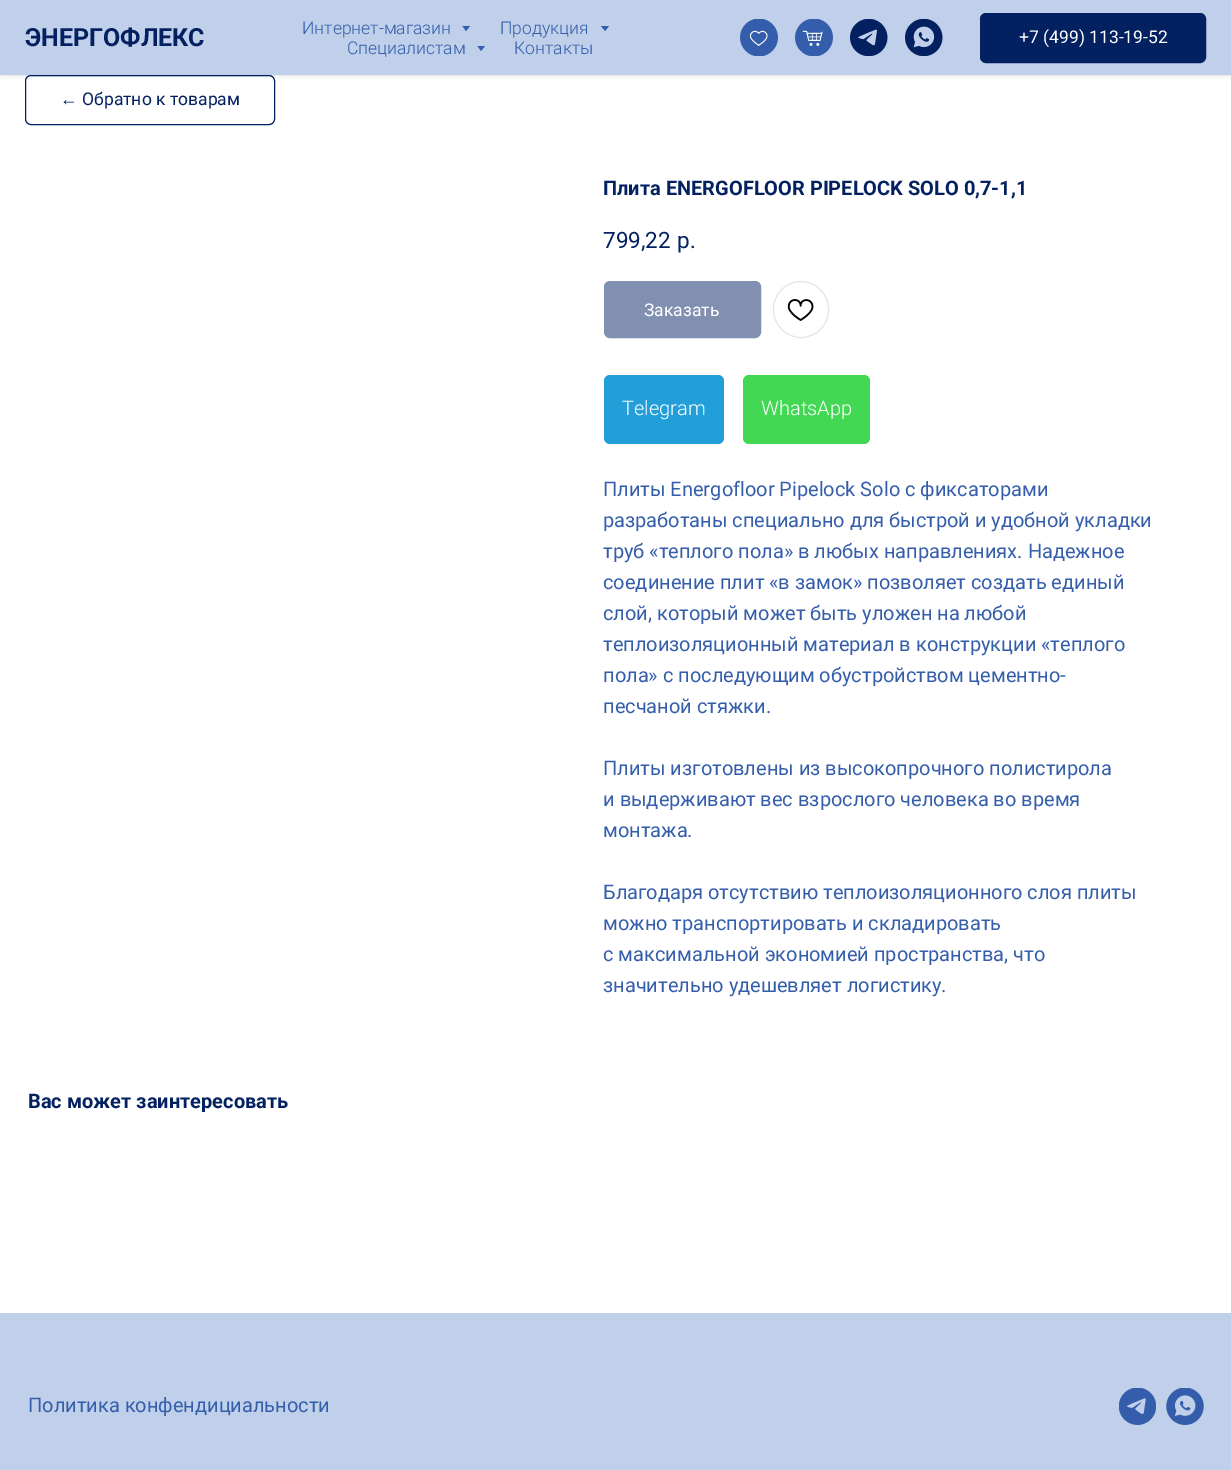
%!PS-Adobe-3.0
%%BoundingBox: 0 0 1231 1470
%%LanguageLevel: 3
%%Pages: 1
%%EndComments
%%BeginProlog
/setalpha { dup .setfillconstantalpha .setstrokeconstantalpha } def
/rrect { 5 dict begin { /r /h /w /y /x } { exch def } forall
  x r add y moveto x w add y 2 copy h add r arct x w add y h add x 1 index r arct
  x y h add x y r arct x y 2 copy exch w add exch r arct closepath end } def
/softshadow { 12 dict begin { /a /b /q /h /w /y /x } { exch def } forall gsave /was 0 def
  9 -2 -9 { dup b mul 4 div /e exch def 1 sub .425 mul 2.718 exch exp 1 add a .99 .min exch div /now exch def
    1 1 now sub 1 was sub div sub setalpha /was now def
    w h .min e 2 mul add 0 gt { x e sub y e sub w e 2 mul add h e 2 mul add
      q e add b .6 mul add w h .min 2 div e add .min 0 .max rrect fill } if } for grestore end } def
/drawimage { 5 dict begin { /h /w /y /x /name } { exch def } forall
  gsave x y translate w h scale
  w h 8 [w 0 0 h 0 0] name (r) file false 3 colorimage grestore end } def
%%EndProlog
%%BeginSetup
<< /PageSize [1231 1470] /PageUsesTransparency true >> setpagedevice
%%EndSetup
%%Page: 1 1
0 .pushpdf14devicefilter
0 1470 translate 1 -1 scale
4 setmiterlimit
1 setgray
0 0 1231 1470 rectfill
0.012 0.125 0.38 setrgbcolor
25.5 75.5 249 49 5.5 rrect stroke
0 setgray
0 1 1231 75 0 2 0.1 softshadow
0.753 0.816 0.918 setrgbcolor
0 0 1231 75 rectfill
0.204 0.369 0.671 setrgbcolor
newpath 462.5 26 moveto 470 26 lineto 466 31 lineto closepath fill
newpath 601 26 moveto 609 26 lineto 605 31 lineto closepath fill
newpath 477.5 46 moveto 485 46 lineto 481 51 lineto closepath fill
(images/1.raw) 740 19 38 37 drawimage
(images/2.raw) 795 19 38 37 drawimage
(images/3.raw) 850 19 38 37 drawimage
(images/4.raw) 905 19 38 37 drawimage
0.012 0.125 0.38 setrgbcolor
980.5 13.5 225 49 5.5 rrect gsave fill grestore
stroke
0.506 0.565 0.69 setrgbcolor
604.5 281.5 156 56 5.5 rrect gsave fill grestore
stroke
0.894 setgray
773.5 281.5 55 56 27.5 rrect stroke
(images/5.raw) 787 299 27 22 drawimage
0.133 0.62 0.851 setrgbcolor
604 375 120 69 6 rrect fill
0.263 0.847 0.329 setrgbcolor
743 375 127 69 6 rrect fill
0.753 0.816 0.918 setrgbcolor
0 1313 1231 157 rectfill
(images/6.raw) 1119 1388 37 37 drawimage
(images/7.raw) 1166 1388 38 37 drawimage
/Roboto-Bold [25 0 0 -25 0 0] selectfont
0.012 0.125 0.38 setrgbcolor
25 46 moveto (ЭНЕРГОФЛЕКС) show
/Roboto-Light [17.5 0 0 -17.5 0 0] selectfont
0.204 0.369 0.671 setrgbcolor
302 34 moveto (Интернет-магазин) show
500 34 moveto (Продукция) show
347 54 moveto (Специалистам) show
514 54 moveto (Контакты) show
/Roboto-Regular [17.5 0 0 -17.5 0 0] selectfont
1 setgray
1019 43 moveto (+7 \(499\) 113-19-52) show
/LiberationSans-Regular [17.5 0 0 -17.5 0 0] selectfont
0.012 0.125 0.38 setrgbcolor
60 105 moveto (←) show
/Roboto-Regular [17.5 0 0 -17.5 0 0] selectfont
82 105 moveto (Обратно к товарам) show
/Roboto-Bold [20 0 0 -20 0 0] selectfont
603 195 moveto (Плита ENERGOFLOOR PIPELOCK SOLO 0,7-1,1) show
/Roboto-Regular [22.5 0 0 -22.5 0 0] selectfont
603 248 moveto (799,22) show
677 248 moveto (р.) show
/Roboto-Regular [17.5 0 0 -17.5 0 0] selectfont
1 setgray
644 316 moveto (Заказать) show
/Roboto-Light [20 0 0 -20 0 0] selectfont
622 415 moveto (Telegram) show
761 415 moveto (WhatsApp) show
/Roboto-Regular [20 0 0 -20 0 0] selectfont
0.204 0.369 0.671 setrgbcolor
603 496 moveto (Плиты Energofloor Pipelock Solo с фиксаторами) show
603 527 moveto (разработаны специально для быстрой и удобной укладки) show
603 558 moveto (труб «теплого пола» в любых направлениях. Надежное) show
603 589 moveto (соединение плит «в замок» позволяет создать единый) show
603 620 moveto (слой, который может быть уложен на любой) show
603 651 moveto (теплоизоляционный материал в конструкции «теплого) show
603 682 moveto (пола» с последующим обустройством цементно-) show
603 713 moveto (песчаной стяжки.) show
603 775 moveto (Плиты изготовлены из высокопрочного полистирола) show
603 806 moveto (и выдерживают вес взрослого человека во время) show
603 837 moveto (монтажа.) show
603 899 moveto (Благодаря отсутствию теплоизоляционного слоя плиты) show
603 930 moveto (можно транспортировать и складировать) show
603 961 moveto (с максимальной экономией пространства, что) show
603 992 moveto (значительно удешевляет логистику.) show
/Roboto-Bold [20 0 0 -20 0 0] selectfont
0.012 0.125 0.38 setrgbcolor
28 1108 moveto (Вас может заинтересовать) show
/Roboto-Regular [20 0 0 -20 0 0] selectfont
0.204 0.369 0.671 setrgbcolor
28 1412 moveto (Политика конфендициальности) show
.poppdf14devicefilter showpage
%%EOF
